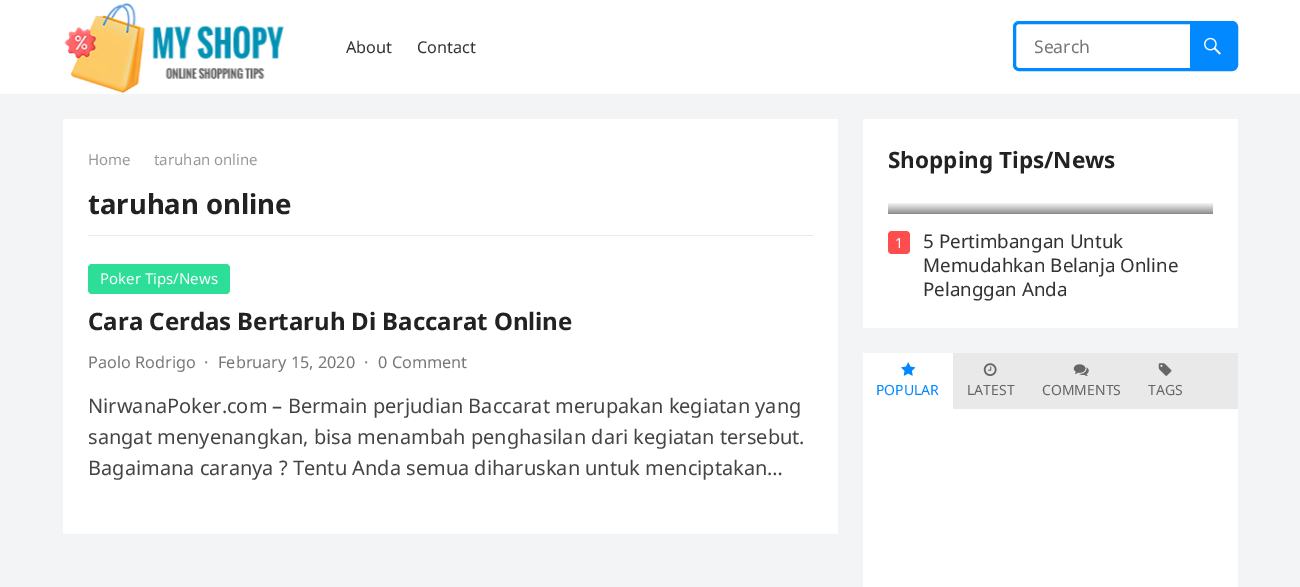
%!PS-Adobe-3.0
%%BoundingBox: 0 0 1300 587
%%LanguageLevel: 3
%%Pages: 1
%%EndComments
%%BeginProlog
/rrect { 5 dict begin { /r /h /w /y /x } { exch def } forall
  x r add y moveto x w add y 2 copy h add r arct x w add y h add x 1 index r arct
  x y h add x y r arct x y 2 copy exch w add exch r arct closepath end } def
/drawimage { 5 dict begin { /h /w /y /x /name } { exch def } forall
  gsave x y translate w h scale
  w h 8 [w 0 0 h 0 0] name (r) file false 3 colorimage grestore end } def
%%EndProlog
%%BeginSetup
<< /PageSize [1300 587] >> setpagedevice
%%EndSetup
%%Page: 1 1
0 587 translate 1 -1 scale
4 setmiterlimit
0.953 0.957 0.961 setrgbcolor
0 0 1300 587 rectfill
1 setgray
0 0 1300 94 rectfill
(images/1.raw) 64 2 221 91 drawimage
0.012 0.537 1 setrgbcolor
3 setlinewidth
1014.5 22.5 222 47 4.5 rrect stroke
1190 24 45 44 rectfill
(images/2.raw) 1204 37 17 18 drawimage
1 setgray
63 119 775 415 rectfill
0.914 setgray
88 235 725 1 rectfill
0.176 0.871 0.596 setrgbcolor
88 264 142 30 4 rrect fill
1 setgray
863 119 375 209 rectfill
gsave newpath 888 203 moveto 1213 203 lineto 1213 214 lineto 888 214 lineto closepath clip newpath
<< /ShadingType 2 /ColorSpace /DeviceRGB /Coords [1050 202 1050 214] /Extend [true true] /Function << /FunctionType 2 /Domain [0 1] /C0 [1 1 1] /C1 [0.549 0.549 0.549] /N 1 >> >> shfill grestore
1 0.298 0.298 setrgbcolor
888 231 22 23 4 rrect fill
0.914 setgray
953 353 285 56 rectfill
1 setgray
863 353 90 56 rectfill
(images/3.raw) 901 362 15 14 drawimage
(images/4.raw) 983 363 14 14 drawimage
(images/5.raw) 1073 364 16 12 drawimage
(images/6.raw) 1158 363 14 13 drawimage
863 409 375 178 rectfill
/NotoSans-Regular [16.25 0 0 -16.25 0 0] selectfont
0.2 setgray
346 53 moveto (About) show
417 53 moveto (Contact) show
/NotoSans-Regular [17.5 0 0 -17.5 0 0] selectfont
0.467 setgray
1034 53 moveto (Search) show
/NotoSans-Regular [15 0 0 -15 0 0] selectfont
0.6 setgray
88 165 moveto (Home) show
154 165 moveto (taruhan online) show
/NotoSans-Bold [27.5 0 0 -27.5 0 0] selectfont
0.133 setgray
88 214 moveto (taruhan online) show
/NotoSans-Regular [15 0 0 -15 0 0] selectfont
1 setgray
100 284 moveto (Poker Tips/News) show
/NotoSans-Bold [24 0 0 -24 0 0] selectfont
0.133 setgray
88 330 moveto (Cara Cerdas Bertaruh Di Baccarat Online) show
/NotoSans-Regular [16.25 0 0 -16.25 0 0] selectfont
0.467 setgray
88 368 moveto (Paolo Rodrigo) show
204 368 moveto (·) show
218 368 moveto (February 15, 2020) show
364 368 moveto (·) show
378 368 moveto (0 Comment) show
/NotoSans-Regular [20 0 0 -20 0 0] selectfont
0.267 setgray
88 413 moveto (NirwanaPoker.com – Bermain perjudian Baccarat merupakan kegiatan yang) show
88 444 moveto (sangat menyenangkan, bisa menambah penghasilan dari kegiatan tersebut.) show
88 475 moveto (Bagaimana caranya ? Tentu Anda semua diharuskan untuk menciptakan…) show
/NotoSans-Bold [22.5 0 0 -22.5 0 0] selectfont
0.133 setgray
888 168 moveto (Shopping Tips/News) show
/NotoSans-Regular [14 0 0 -14 0 0] selectfont
1 setgray
895 248 moveto (1) show
/NotoSans-Regular [18.75 0 0 -18.75 0 0] selectfont
0.2 setgray
923 248 moveto (5 Pertimbangan Untuk) show
923 272 moveto (Memudahkan Belanja Online) show
923 296 moveto (Pelanggan Anda) show
/NotoSans-Regular [14 0 0 -14 0 0] selectfont
0.012 0.537 1 setrgbcolor
876 395 moveto (POPULAR) show
0.4 setgray
967 395 moveto (LATEST) show
1042 395 moveto (COMMENTS) show
1148 395 moveto (TAGS) show
showpage
%%EOF
